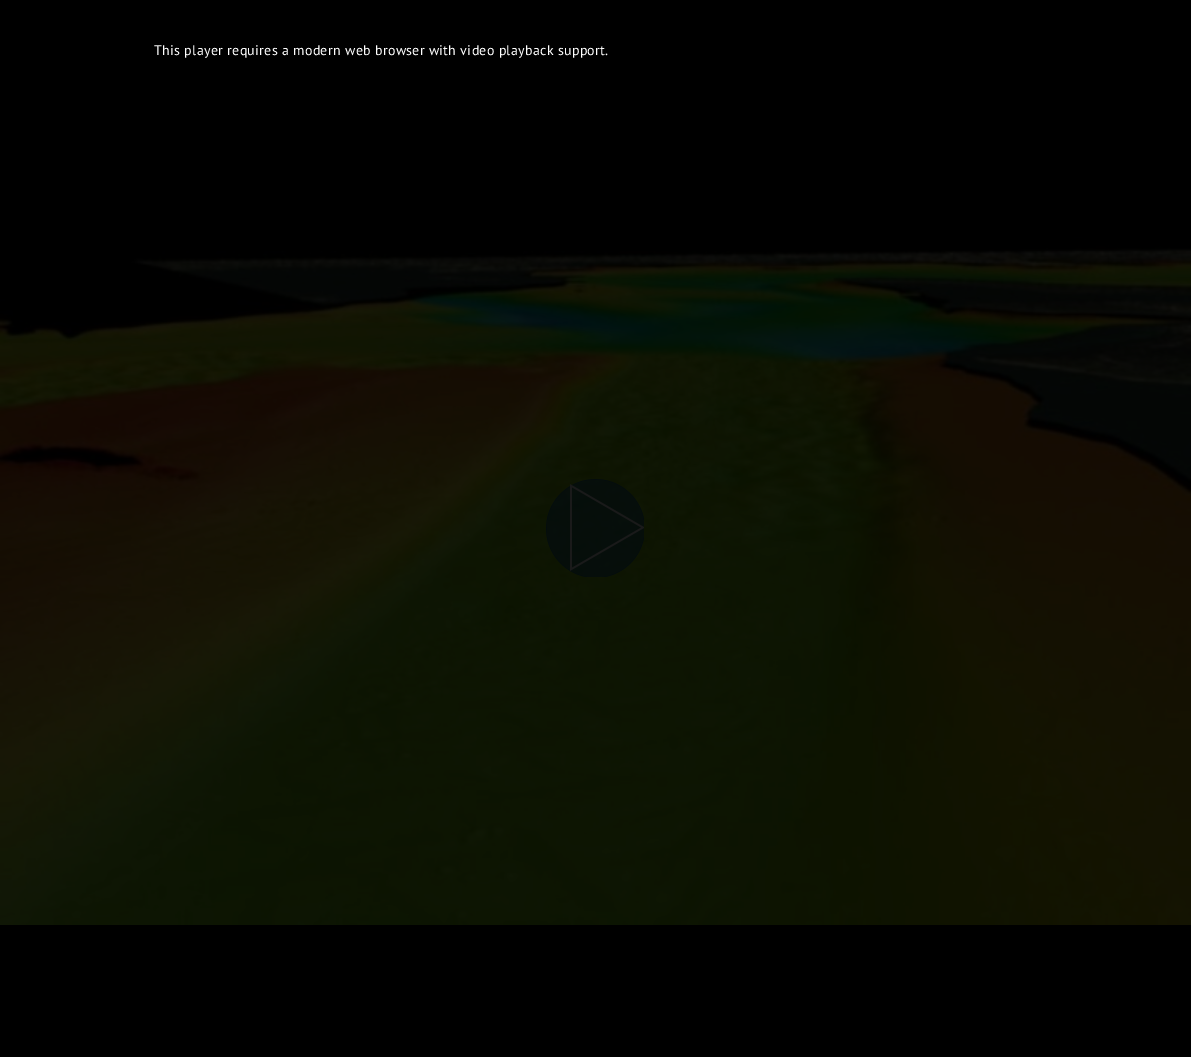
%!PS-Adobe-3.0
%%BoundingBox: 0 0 1191 1057
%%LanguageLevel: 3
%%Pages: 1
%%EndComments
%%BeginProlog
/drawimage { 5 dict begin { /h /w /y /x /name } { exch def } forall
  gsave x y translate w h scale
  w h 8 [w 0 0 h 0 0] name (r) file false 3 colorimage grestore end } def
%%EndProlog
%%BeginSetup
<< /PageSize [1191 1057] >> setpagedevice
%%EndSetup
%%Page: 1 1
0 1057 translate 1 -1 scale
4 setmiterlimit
0 setgray
0 0 1191 1057 rectfill
(images/1.raw) 0 237 1191 688 drawimage
(images/2.raw) 546 479 98 98 drawimage
/PTSans-Regular [14 0 0 -14 0 0] selectfont
1 setgray
154 55 moveto 0.3 0 (This player requires a modern web browser with video playback support.) ashow
showpage
%%EOF
